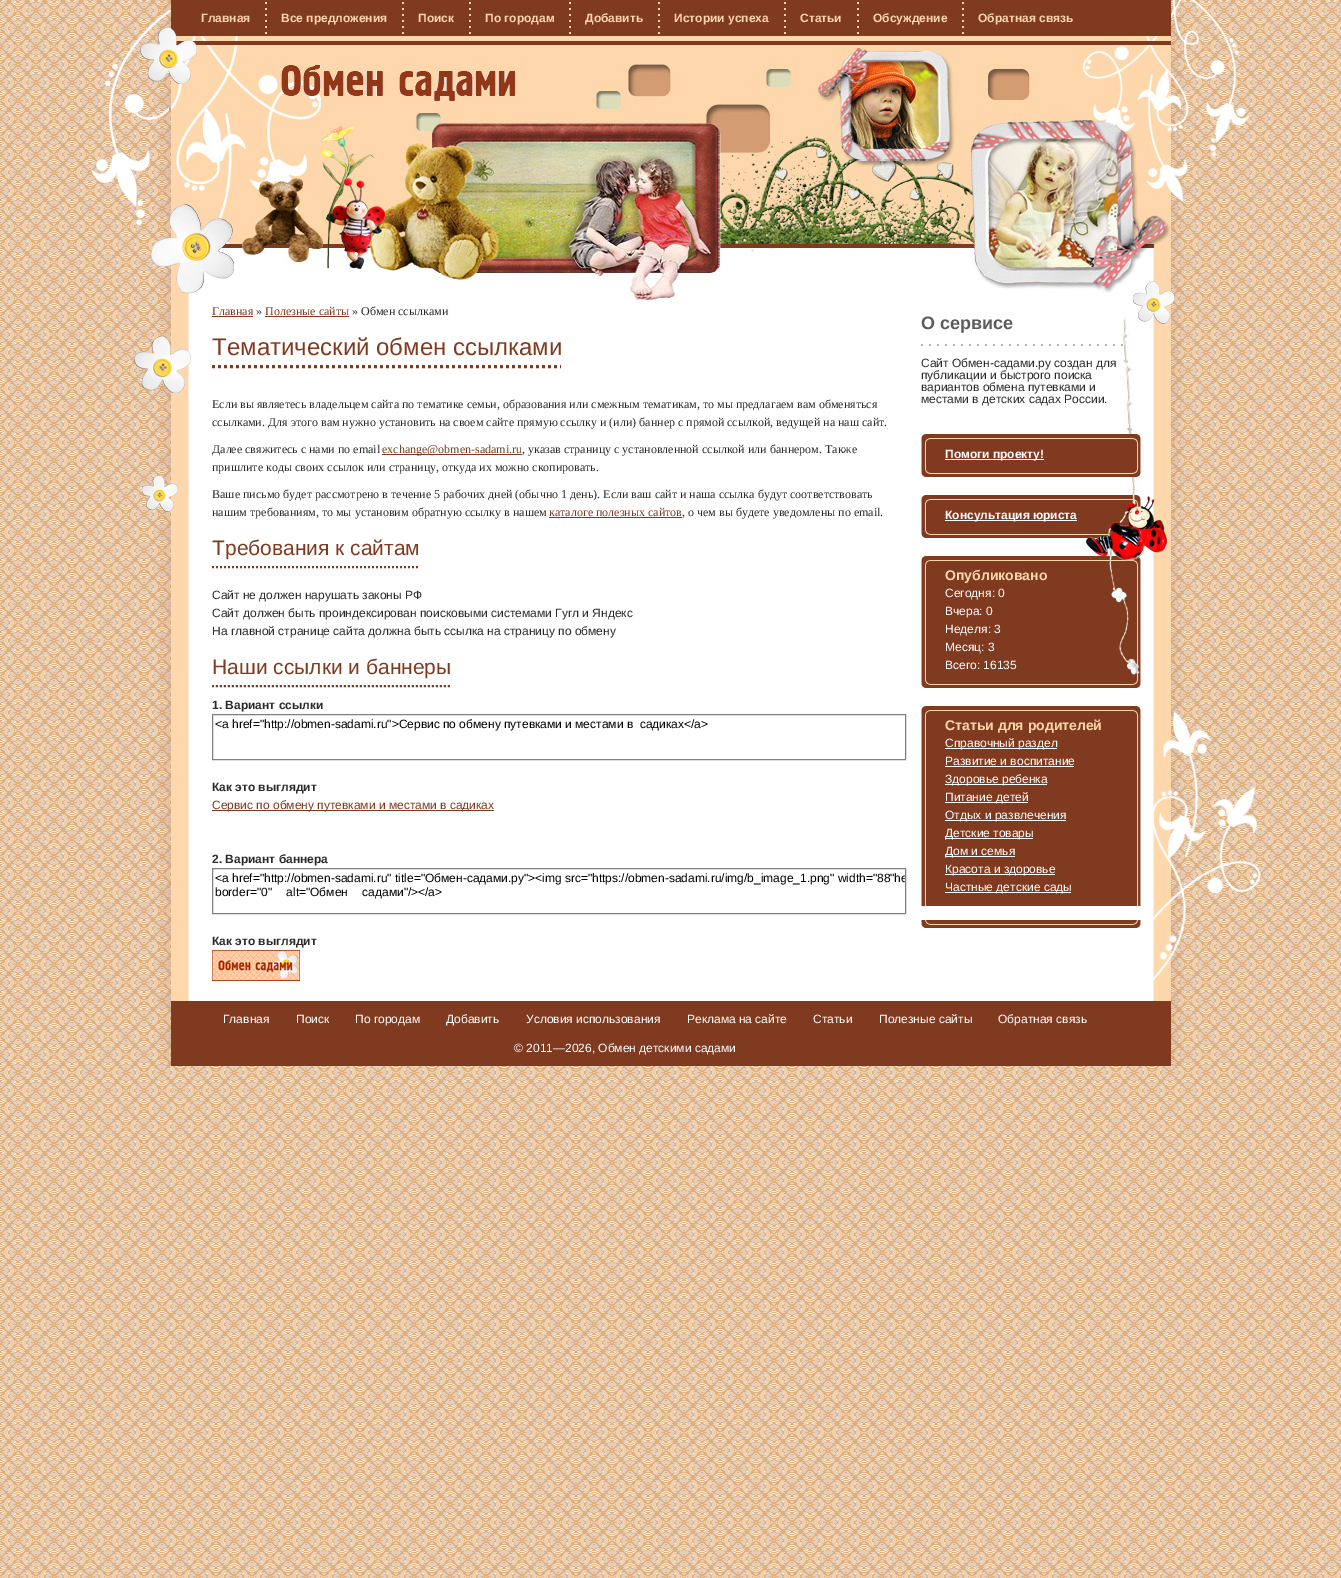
%!PS-Adobe-3.0
%%BoundingBox: 0 0 1341 1578
%%LanguageLevel: 3
%%Pages: 1
%%EndComments
%%BeginProlog
/drawimage { 5 dict begin { /h /w /y /x /name } { exch def } forall
  gsave x y translate w h scale
  w h 8 [w 0 0 h 0 0] name (r) file false 3 colorimage grestore end } def
%%EndProlog
%%BeginSetup
<< /PageSize [1341 1578] >> setpagedevice
%%EndSetup
%%Page: 1 1
0 1578 translate 1 -1 scale
4 setmiterlimit
1 setgray
0 0 1341 1578 rectfill
(images/1.raw) 0 0 1341 1578 drawimage
(images/2.raw) 158 0 1026 1066 drawimage
(images/3.raw) 171 0 1000 676 drawimage
(images/4.raw) 91 9 143 285 drawimage
(images/5.raw) 265 2 2 32 drawimage
(images/5.raw) 402 2 2 32 drawimage
(images/5.raw) 469 2 2 32 drawimage
(images/5.raw) 569 2 2 32 drawimage
(images/5.raw) 658 2 2 32 drawimage
(images/5.raw) 784 2 2 32 drawimage
(images/5.raw) 857 2 2 32 drawimage
(images/5.raw) 962 2 2 32 drawimage
(images/6.raw) 1133 0 116 324 drawimage
(images/7.raw) 281 65 235 36 drawimage
(images/8.raw) 633 293 42 7 drawimage
(images/9.raw) 134 336 57 57 drawimage
0.498 0.227 0.122 setrgbcolor
212 316 41 1 rectfill
265 316 84 1 rectfill
0.502 0.227 0.125 setrgbcolor
3 setlinewidth
[3 3] 0 setdash
newpath 212 366.5 moveto 561 366.5 lineto stroke
0.498 0.227 0.122 setrgbcolor
382 454 140 1 rectfill
549 517 133 1 rectfill
0.502 0.227 0.125 setrgbcolor
2 setlinewidth
[2 2] 0 setdash
newpath 212 567 moveto 419 567 lineto stroke
newpath 212 686 moveto 451 686 lineto stroke
0.502 setgray
1 setlinewidth
[] 0 setdash
212.5 714.5 693 45 rectstroke
0.498 0.227 0.122 setrgbcolor
212 810 282 1 rectfill
0.502 setgray
212.5 868.5 693 45 rectstroke
(images/10.raw) 212 950 88 31 drawimage
(images/11.raw) 921 344 202 2 drawimage
(images/12.raw) 921 434 220 35 drawimage
(images/13.raw) 921 469 220 8 drawimage
1 setgray
945 459 99 1 rectfill
(images/12.raw) 921 495 220 35 drawimage
(images/14.raw) 921 530 191 8 drawimage
945 520 132 1 rectfill
(images/16.raw) 921 556 220 124 drawimage
(images/15.raw) 1086 495 81 180 drawimage
(images/13.raw) 921 680 220 8 drawimage
(images/17.raw) 921 706 220 200 drawimage
(images/13.raw) 921 920 220 8 drawimage
945 748 112 1 rectfill
945 766 129 1 rectfill
945 784 102 1 rectfill
945 802 83 1 rectfill
945 820 121 1 rectfill
945 838 88 1 rectfill
945 856 70 1 rectfill
945 874 110 1 rectfill
945 892 126 1 rectfill
(images/18.raw) 142 475 36 37 drawimage
(images/19.raw) 1153 711 108 270 drawimage
0.498 0.227 0.122 setrgbcolor
171 1001 1000 65 rectfill
/LiberationSans-Bold [12 0 0 -12 0 0] selectfont
0.996 0.843 0.671 setrgbcolor
201 22 moveto (Главная) show
281 22 moveto (Все предложения) show
418 22 moveto (Поиск) show
485 22 moveto (По городам) show
585 22 moveto (Добавить) show
674 22 moveto (Истории успеха) show
800 22 moveto (Статьи) show
873 22 moveto (Обсуждение) show
978 22 moveto (Обратная связь) show
/LiberationSerif-Regular [12 0 0 -12 0 0] selectfont
0.498 0.227 0.122 setrgbcolor
212 315 moveto (Главная) show
0.169 setgray
256 315 moveto (») show
0.498 0.227 0.122 setrgbcolor
265 315 moveto (Полезные сайты) show
0.169 setgray
352 315 moveto (» Обмен ссылками) show
/LiberationSans-Regular [24 0 0 -24 0 0] selectfont
0.498 0.227 0.122 setrgbcolor
212 355 moveto (Тематический обмен ссылками) show
/LiberationSerif-Regular [12 0 0 -12 0 0] selectfont
0.169 setgray
212 408 moveto (Если вы являетесь владельцем сайта по тематике семьи, образования или смежным тематикам, то мы предлагаем вам обменяться) show
212 426 moveto (ссылками. Для этого вам нужно установить на своем сайте прямую ссылку и \(или\) баннер с прямой ссылкой, ведущей на наш сайт.) show
212 453 moveto (Далее свяжитесь с нами по email) show
0.498 0.227 0.122 setrgbcolor
382 453 moveto (exchange@obmen-sadami.ru) show
0.169 setgray
522 453 moveto (, указав страницу с установленной ссылкой или баннером. Также) show
212 471 moveto (пришлите коды своих ссылок или страницу, откуда их можно скопировать.) show
212 498 moveto (Ваше письмо будет рассмотрено в течение 5 рабочих дней \(обычно 1 день\). Если ваш сайт и наша ссылка будут соответствовать) show
212 516 moveto (нашим требованиям, то мы установим обратную ссылку в нашем) show
0.498 0.227 0.122 setrgbcolor
549 516 moveto (каталоге полезных сайтов) show
0.169 setgray
682 516 moveto (, о чем вы будете уведомлены по email.) show
/LiberationSans-Regular [21 0 0 -21 0 0] selectfont
0.498 0.227 0.122 setrgbcolor
212 555 moveto (Требования к сайтам) show
/LiberationSans-Regular [12 0 0 -12 0 0] selectfont
0.169 setgray
212 599 moveto (Сайт не должен нарушать законы РФ) show
212 617 moveto (Сайт должен быть проиндексирован поисковыми системами Гугл и Яндекс) show
212 635 moveto (На главной странице сайта должна быть ссылка на страницу по обмену) show
/LiberationSans-Regular [21 0 0 -21 0 0] selectfont
0.498 0.227 0.122 setrgbcolor
212 674 moveto (Наши ссылки и баннеры) show
/LiberationSans-Bold [12 0 0 -12 0 0] selectfont
0.169 setgray
212 709 moveto (1. Вариант ссылки) show
/LiberationSans-Regular [12 0 0 -12 0 0] selectfont
0 setgray
215 728 moveto (<a href="http://obmen-sadami.ru">Сервис по обмену путевками и местами в  садиках</a>) show
/LiberationSans-Bold [12 0 0 -12 0 0] selectfont
0.169 setgray
212 791 moveto (Как это выглядит) show
/LiberationSans-Regular [12 0 0 -12 0 0] selectfont
0.498 0.227 0.122 setrgbcolor
212 809 moveto (Сервис по обмену путевками и местами в садиках) show
/LiberationSans-Bold [12 0 0 -12 0 0] selectfont
0.169 setgray
212 863 moveto (2. Вариант баннера) show
/LiberationSans-Regular [12 0 0 -12 0 0] selectfont
0 setgray
215 882 moveto (<a href="http://obmen-sadami.ru" title="Обмен-садами.ру"><img src="https://obmen-sadami.ru/img/b_image_1.png" width="88") show
gsave
213 869 692 44 rectclip
894 882 moveto (he) show
grestore
215 896 moveto 11 0 32 (border="0" alt="Обмен садами"/></a>) widthshow
/LiberationSans-Bold [12 0 0 -12 0 0] selectfont
0.169 setgray
212 945 moveto (Как это выглядит) show
/LiberationSans-Bold [18 0 0 -18 0 0] selectfont
0.361 setgray
921 329 moveto (О сервисе) show
/LiberationSans-Regular [12 0 0 -12 0 0] selectfont
0.169 setgray
921 367 moveto (Сайт Обмен-садами.ру создан для) show
921 379 moveto (публикации и быстрого поиска) show
921 391 moveto (вариантов обмена путевками и) show
921 403 moveto (местами в детских садах России.) show
/LiberationSans-Bold [12 0 0 -12 0 0] selectfont
1 setgray
945 458 moveto (Помоги проекту!) show
945 519 moveto (Консультация юриста) show
/LiberationSans-Bold [14 0 0 -14 0 0] selectfont
0.996 0.843 0.671 setrgbcolor
945 580 moveto (Опубликовано) show
/LiberationSans-Regular [12 0 0 -12 0 0] selectfont
1 setgray
945 597 moveto (Сегодня: 0) show
945 615 moveto (Вчера: 0) show
945 633 moveto (Неделя: 3) show
945 651 moveto (Месяц: 3) show
945 669 moveto (Всего: 16135) show
/LiberationSans-Bold [14 0 0 -14 0 0] selectfont
0.996 0.843 0.671 setrgbcolor
945 730 moveto (Статьи для родителей) show
/LiberationSans-Regular [12 0 0 -12 0 0] selectfont
1 setgray
945 747 moveto (Справочный раздел) show
945 765 moveto (Развитие и воспитание) show
945 783 moveto (Здоровье ребенка) show
945 801 moveto (Питание детей) show
945 819 moveto (Отдых и развлечения) show
945 837 moveto (Детские товары) show
945 855 moveto (Дом и семья) show
945 873 moveto (Красота и здоровье) show
945 891 moveto (Частные детские сады) show
223 1023 moveto (Главная) show
296 1023 moveto (Поиск) show
355 1023 moveto (По городам) show
446 1023 moveto (Добавить) show
526 1023 moveto (Условия использования) show
687 1023 moveto (Реклама на сайте) show
813 1023 moveto (Статьи) show
879 1023 moveto (Полезные сайты) show
998 1023 moveto (Обратная связь) show
514 1052 moveto (© 2011—2026, Обмен детскими садами) show
showpage
%%EOF
